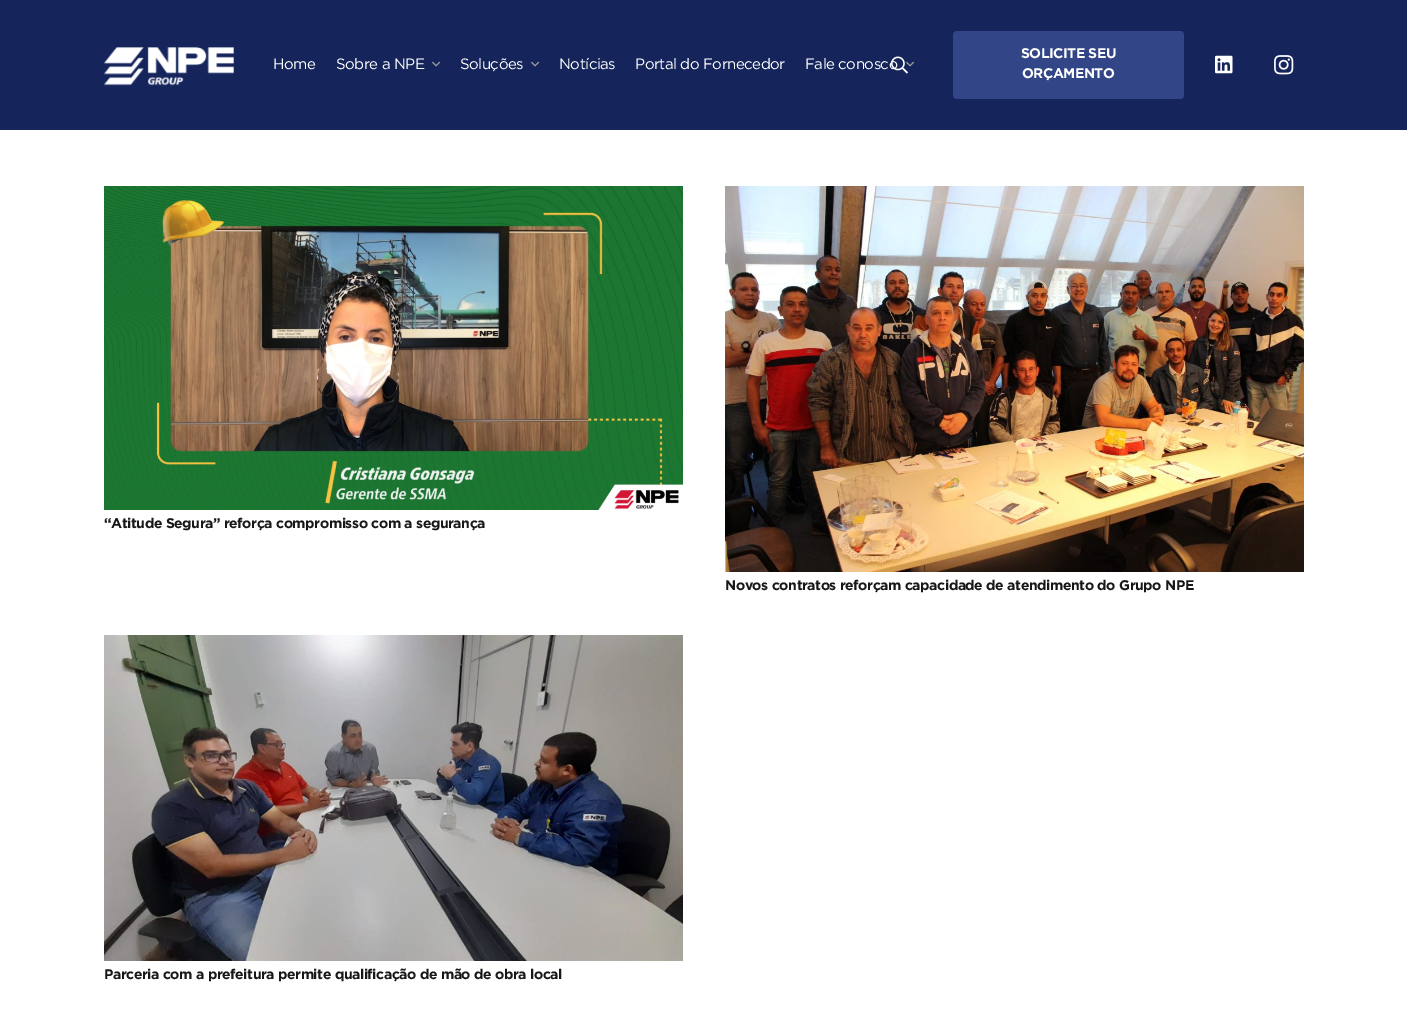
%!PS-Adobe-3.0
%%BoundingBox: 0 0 1407 1034
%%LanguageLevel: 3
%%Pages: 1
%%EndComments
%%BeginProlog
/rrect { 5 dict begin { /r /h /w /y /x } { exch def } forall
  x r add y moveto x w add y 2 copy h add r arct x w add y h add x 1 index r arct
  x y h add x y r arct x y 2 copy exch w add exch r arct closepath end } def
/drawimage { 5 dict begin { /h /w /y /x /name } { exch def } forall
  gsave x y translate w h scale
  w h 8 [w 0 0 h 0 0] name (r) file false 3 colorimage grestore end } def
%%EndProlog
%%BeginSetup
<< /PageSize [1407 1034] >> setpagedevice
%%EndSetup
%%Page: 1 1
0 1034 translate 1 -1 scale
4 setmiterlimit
1 setgray
0 0 1407 1034 rectfill
0.082 0.145 0.361 setrgbcolor
0 0 1407 130 rectfill
(images/1.raw) 104 47 130 39 drawimage
(images/2.raw) 432 61 9 6 drawimage
(images/2.raw) 531 61 9 6 drawimage
(images/2.raw) 906 61 9 6 drawimage
0.196 0.271 0.529 setrgbcolor
953 31 231 68 4 rrect fill
(images/4.raw) 1215 55 18 19 drawimage
(images/5.raw) 1274 55 20 20 drawimage
(images/6.raw) 104 186 579 324 drawimage
(images/7.raw) 725 186 579 386 drawimage
(images/8.raw) 104 635 579 326 drawimage
/Gotham-Regular [15 0 0 -15 0 0] selectfont
1 setgray
273 69 moveto -0.5 0 (Home) ashow
336 69 moveto -0.5 0 (Sobre a NPE) ashow
460 69 moveto -0.5 0 (Soluções) ashow
559 69 moveto -0.5 0 (Notícias) ashow
635 69 moveto -0.5 0 (Portal do Fornecedor) ashow
805 69 moveto -0.5 0 (Fale conosco) ashow
(images/3.raw) 891 56 17 18 drawimage
/Gotham-Bold [14 0 0 -14 0 0] selectfont
1021 58 moveto -0.5 0 (SOLICITE SEU) ashow
1022 78 moveto -0.5 0 (ORÇAMENTO) ashow
0.094 setgray
104 528 moveto -0.42 0 (“Atitude Segura” reforça compromisso com a segurança) ashow
725 590 moveto -0.42 0 (Novos contratos reforçam capacidade de atendimento do Grupo NPE) ashow
104 979 moveto -0.42 0 (Parceria com a prefeitura permite qualificação de mão de obra local) ashow
showpage
%%EOF
